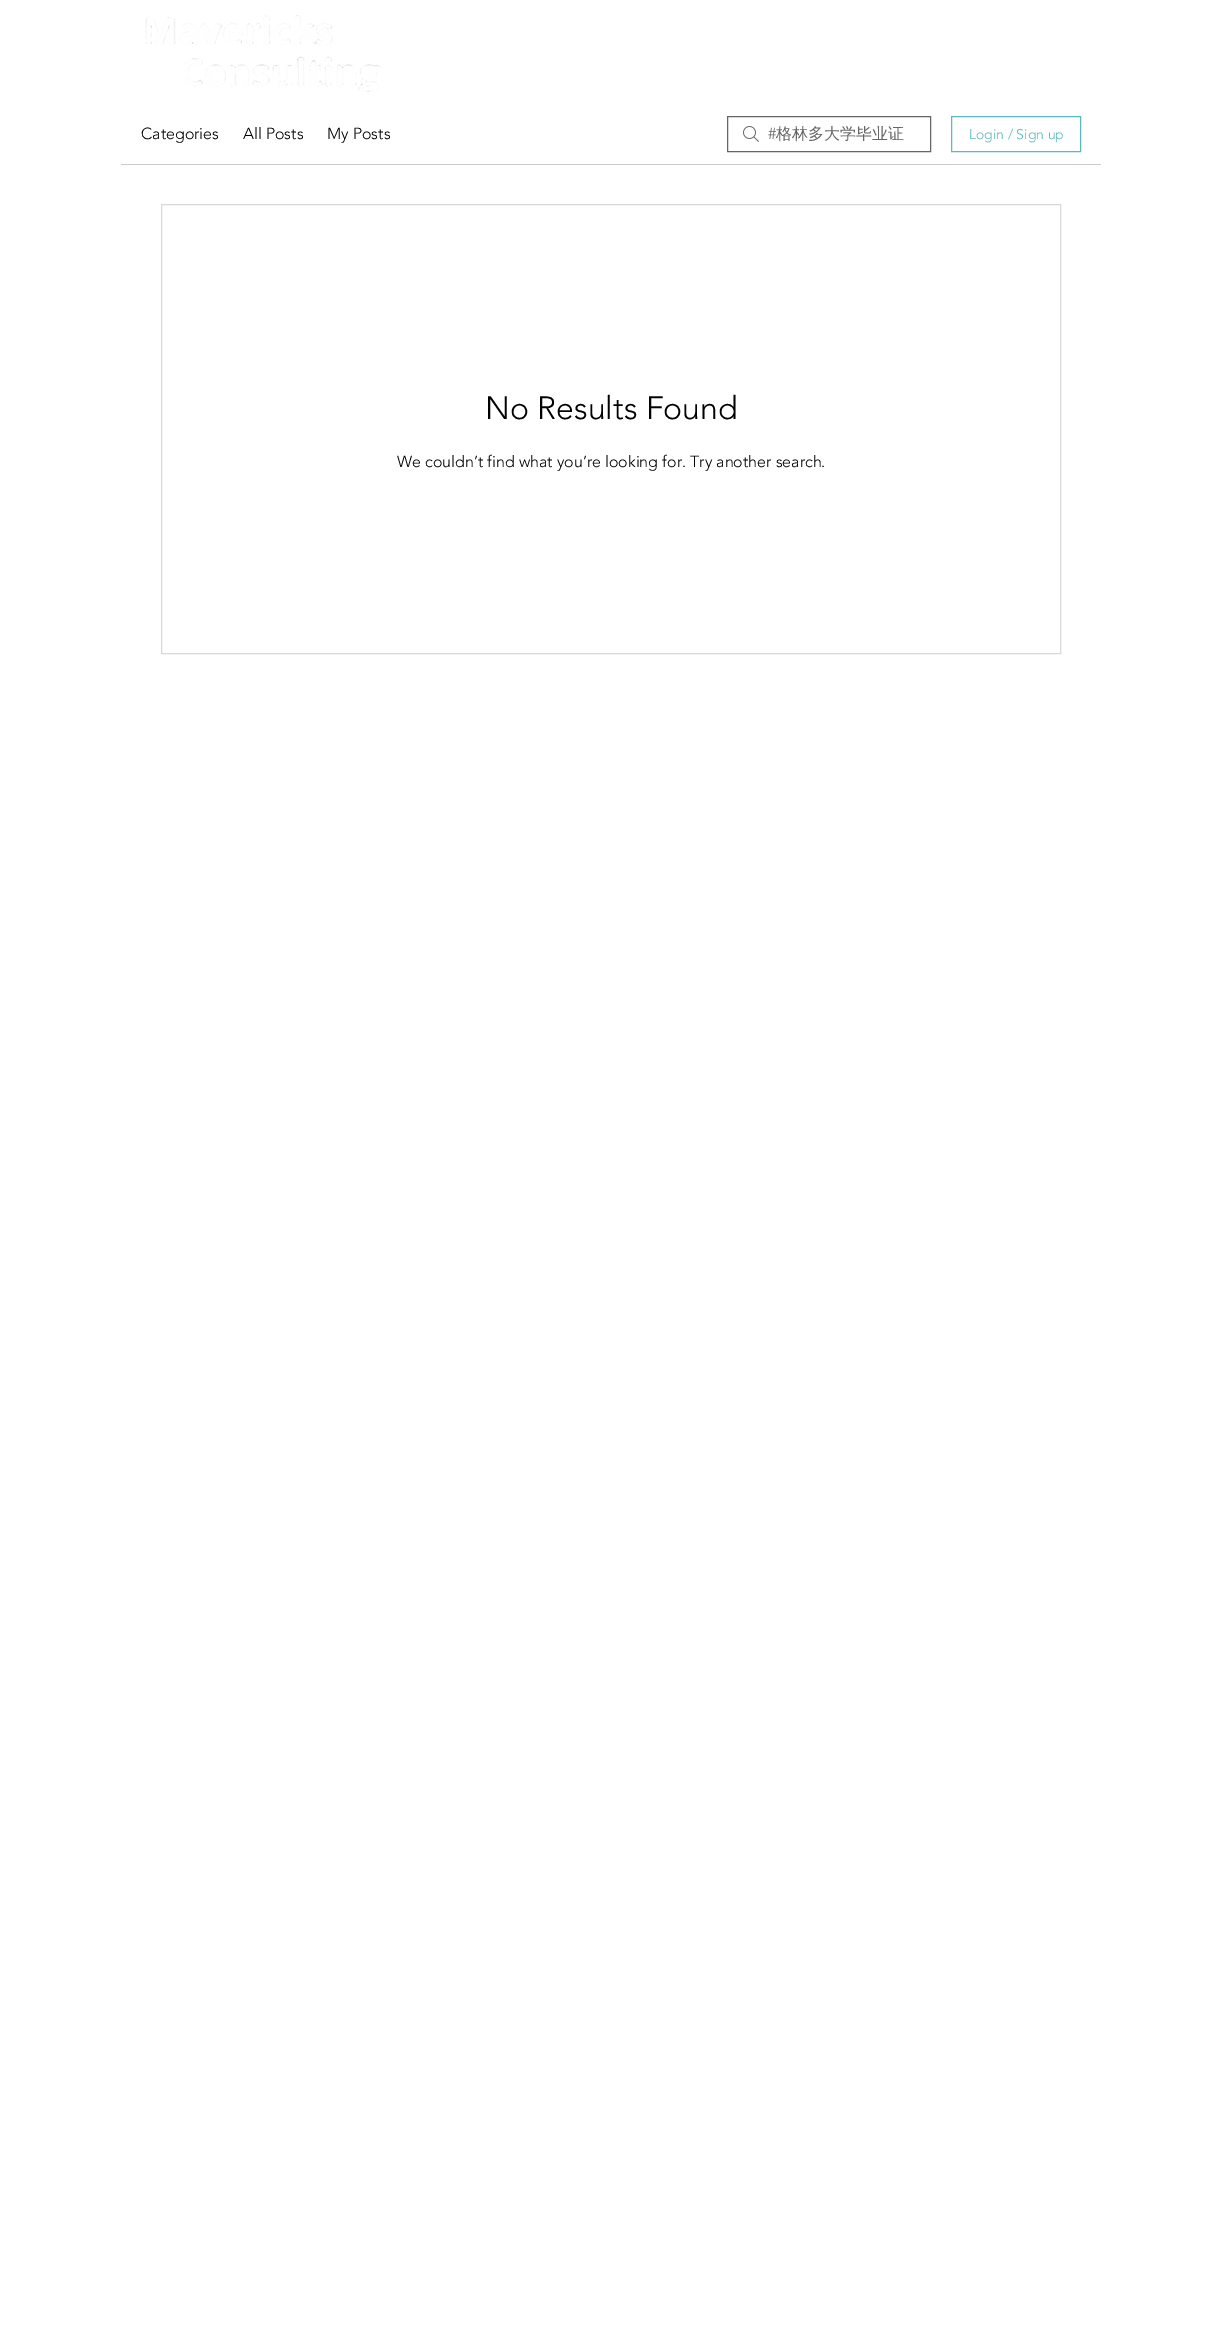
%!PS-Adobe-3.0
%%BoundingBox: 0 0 1222 2341
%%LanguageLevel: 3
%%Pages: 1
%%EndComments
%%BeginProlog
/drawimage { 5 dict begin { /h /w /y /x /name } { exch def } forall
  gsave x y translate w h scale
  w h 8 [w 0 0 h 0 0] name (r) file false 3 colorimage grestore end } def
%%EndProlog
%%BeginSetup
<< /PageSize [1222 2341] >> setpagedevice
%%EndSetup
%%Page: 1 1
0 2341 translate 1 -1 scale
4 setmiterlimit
1 setgray
0 0 1222 2341 rectfill
(images/1.raw) 145 15 236 77 drawimage
0.8 setgray
121 164 980 1 rectfill
(images/2.raw) 743 126 16 16 drawimage
0.4 setgray
727.5 116.5 203 35 rectstroke
0.341 0.733 0.749 setrgbcolor
951.5 116.5 129 35 rectstroke
0.851 setgray
161.5 204.5 899 449 rectstroke
/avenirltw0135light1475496-Light [16 0 0 -16 0 0] selectfont
0 setgray
141 139 moveto (Categories) show
243 139 moveto (All Posts) show
327 139 moveto (My Posts) show
0.4 setgray
768 139 moveto (#) show
/WenQuanYiZenHei-Medium [16 0 0 -16 0 0] selectfont
776 139 moveto (格林多大学毕业证) show
/avenirltw0135light1475496-Light [14 0 0 -14 0 0] selectfont
0.341 0.733 0.749 setrgbcolor
969 139 moveto (Login / Sign up) show
/avenirltw0135light1475496-Light [32 0 0 -32 0 0] selectfont
0 setgray
485 419 moveto (No Results Found) show
/avenirltw0135light1475496-Light [16 0 0 -16 0 0] selectfont
397 467 moveto (We couldn’t find what you’re looking for. Try another search.) show
showpage
%%EOF
